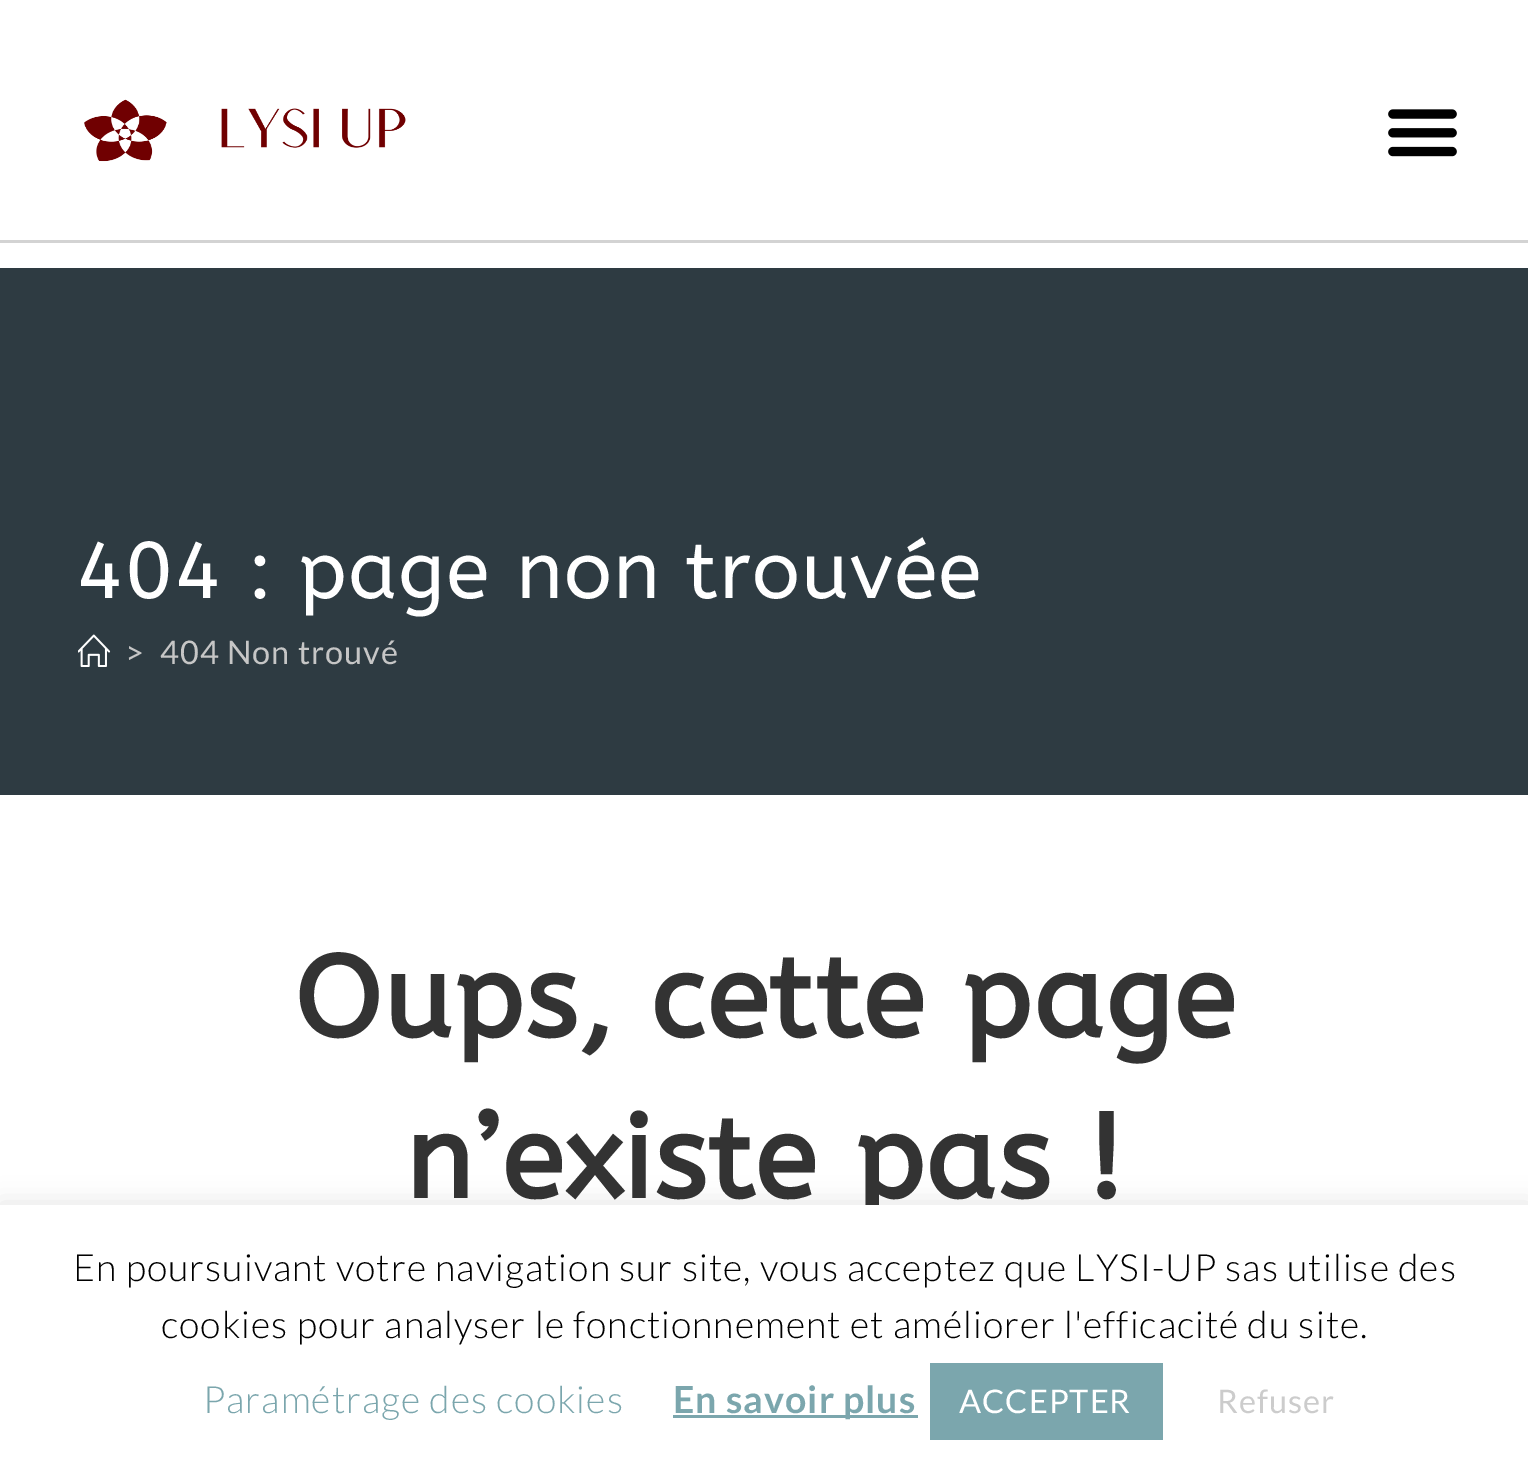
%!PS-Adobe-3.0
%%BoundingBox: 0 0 1528 1482
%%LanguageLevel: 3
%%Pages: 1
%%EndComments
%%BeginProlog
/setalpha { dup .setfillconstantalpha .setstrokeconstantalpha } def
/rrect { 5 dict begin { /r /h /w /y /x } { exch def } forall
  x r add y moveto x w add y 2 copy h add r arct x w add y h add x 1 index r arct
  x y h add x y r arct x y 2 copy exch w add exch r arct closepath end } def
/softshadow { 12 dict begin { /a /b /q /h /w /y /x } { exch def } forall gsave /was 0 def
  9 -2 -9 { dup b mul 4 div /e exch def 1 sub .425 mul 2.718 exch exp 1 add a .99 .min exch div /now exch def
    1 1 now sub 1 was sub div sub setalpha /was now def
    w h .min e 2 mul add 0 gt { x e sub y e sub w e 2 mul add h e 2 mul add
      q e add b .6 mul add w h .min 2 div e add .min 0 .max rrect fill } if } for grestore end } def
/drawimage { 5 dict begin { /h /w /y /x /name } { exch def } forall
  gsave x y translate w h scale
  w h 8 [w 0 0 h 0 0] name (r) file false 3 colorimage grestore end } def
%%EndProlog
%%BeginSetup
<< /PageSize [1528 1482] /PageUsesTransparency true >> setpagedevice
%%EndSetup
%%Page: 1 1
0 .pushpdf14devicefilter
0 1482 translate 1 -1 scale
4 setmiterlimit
1 setgray
0 0 1528 1482 rectfill
0.827 setgray
0 240 1528 3 rectfill
(images/1.raw) 84 99 322 63 drawimage
(images/2.raw) 1388 109 69 48 drawimage
0.18 0.231 0.259 setrgbcolor
0 268 1528 527 rectfill
(images/3.raw) 78 634 33 33 drawimage
0.675 0.671 0.671 setrgbcolor
0 1203 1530 277 0 12.5 0.3 softshadow
/ABeeZee-Regular [80 0 0 -80 0 0] selectfont
1 setgray
76 598 moveto 1 0 (404 : page non trouvée) ashow
/Lato-Regular [32.5 0 0 -32.5 0 0] selectfont
0.776 setgray
125 664 moveto 1 0 (>) ashow
160 664 moveto 1 0 (404 Non trouvé) ashow
/ABeeZee-Bold [115 0 0 -115 0 0] selectfont
0.2 setgray
294 1037 moveto 1 0 (Oups, cette page) ashow
405 1198 moveto 1 0 (n’existe pas !) ashow
1 setgray
0 1205 1528 277 rectfill
/Lato-Light [37.5 0 0 -37.5 0 0] selectfont
0 setgray
73 1281 moveto 1 0 (En poursuivant votre navigation sur site, vous acceptez que LYSI-UP sas utilise des) ashow
161 1338 moveto 1 0 (cookies pour analyser le fonctionnement et améliorer l'efficacité du site.) ashow
0.482 0.651 0.678 setrgbcolor
203 1413 moveto 1 0 (Paramétrage des cookies) ashow
673 1415 245 3 rectfill
/Lato-Bold [37.5 0 0 -37.5 0 0] selectfont
673 1413 moveto 1 0 (En savoir plus) ashow
930 1363 233 77 rectfill
/Lato-Regular [32.5 0 0 -32.5 0 0] selectfont
1 setgray
959 1413 moveto 1 0 (ACCEPTER) ashow
0.8 setgray
1217 1413 moveto 1 0 (Refuser) ashow
.poppdf14devicefilter showpage
%%EOF
